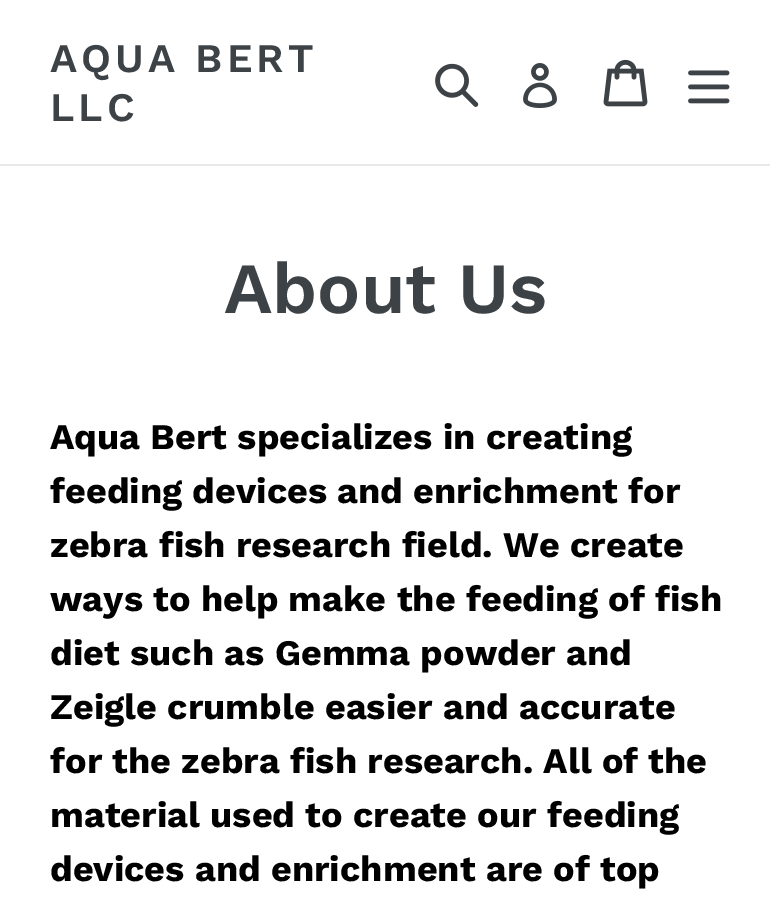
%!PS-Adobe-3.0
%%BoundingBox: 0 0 770 924
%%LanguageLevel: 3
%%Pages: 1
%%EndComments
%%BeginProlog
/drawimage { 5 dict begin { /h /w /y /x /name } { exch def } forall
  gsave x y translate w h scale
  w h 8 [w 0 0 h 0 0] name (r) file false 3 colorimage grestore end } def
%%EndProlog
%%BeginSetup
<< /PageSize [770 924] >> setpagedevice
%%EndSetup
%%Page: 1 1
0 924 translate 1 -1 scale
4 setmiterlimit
1 setgray
0 0 770 924 rectfill
0.91 0.914 0.922 setrgbcolor
0 164 770 2 rectfill
(images/1.raw) 435 63 44 44 drawimage
(images/2.raw) 523 63 34 45 drawimage
(images/3.raw) 603 59 45 48 drawimage
(images/4.raw) 688 70 42 34 drawimage
/WorkSans-SemiBold [40.5 0 0 -40.5 0 0] selectfont
0.239 0.259 0.275 setrgbcolor
50 72 moveto 4 0 (AQUA BERT) ashow
50 121 moveto 4 0 (LLC) ashow
/WorkSans-SemiBold [72 0 0 -72 0 0] selectfont
224 313 moveto (About Us) show
/WorkSans-Bold [36 0 0 -36 0 0] selectfont
0 setgray
50 449 moveto (Aqua Bert specializes in creating) show
50 503 moveto (feeding devices and enrichment for) show
50 557 moveto (zebra fish research field. We create) show
50 611 moveto (ways to help make the feeding of fish) show
50 665 moveto (diet such as Gemma powder and) show
50 719 moveto (Zeigle crumble easier and accurate) show
50 773 moveto (for the zebra fish research. All of the) show
50 827 moveto (material used to create our feeding) show
50 881 moveto (devices and enrichment are of top) show
showpage
%%EOF
